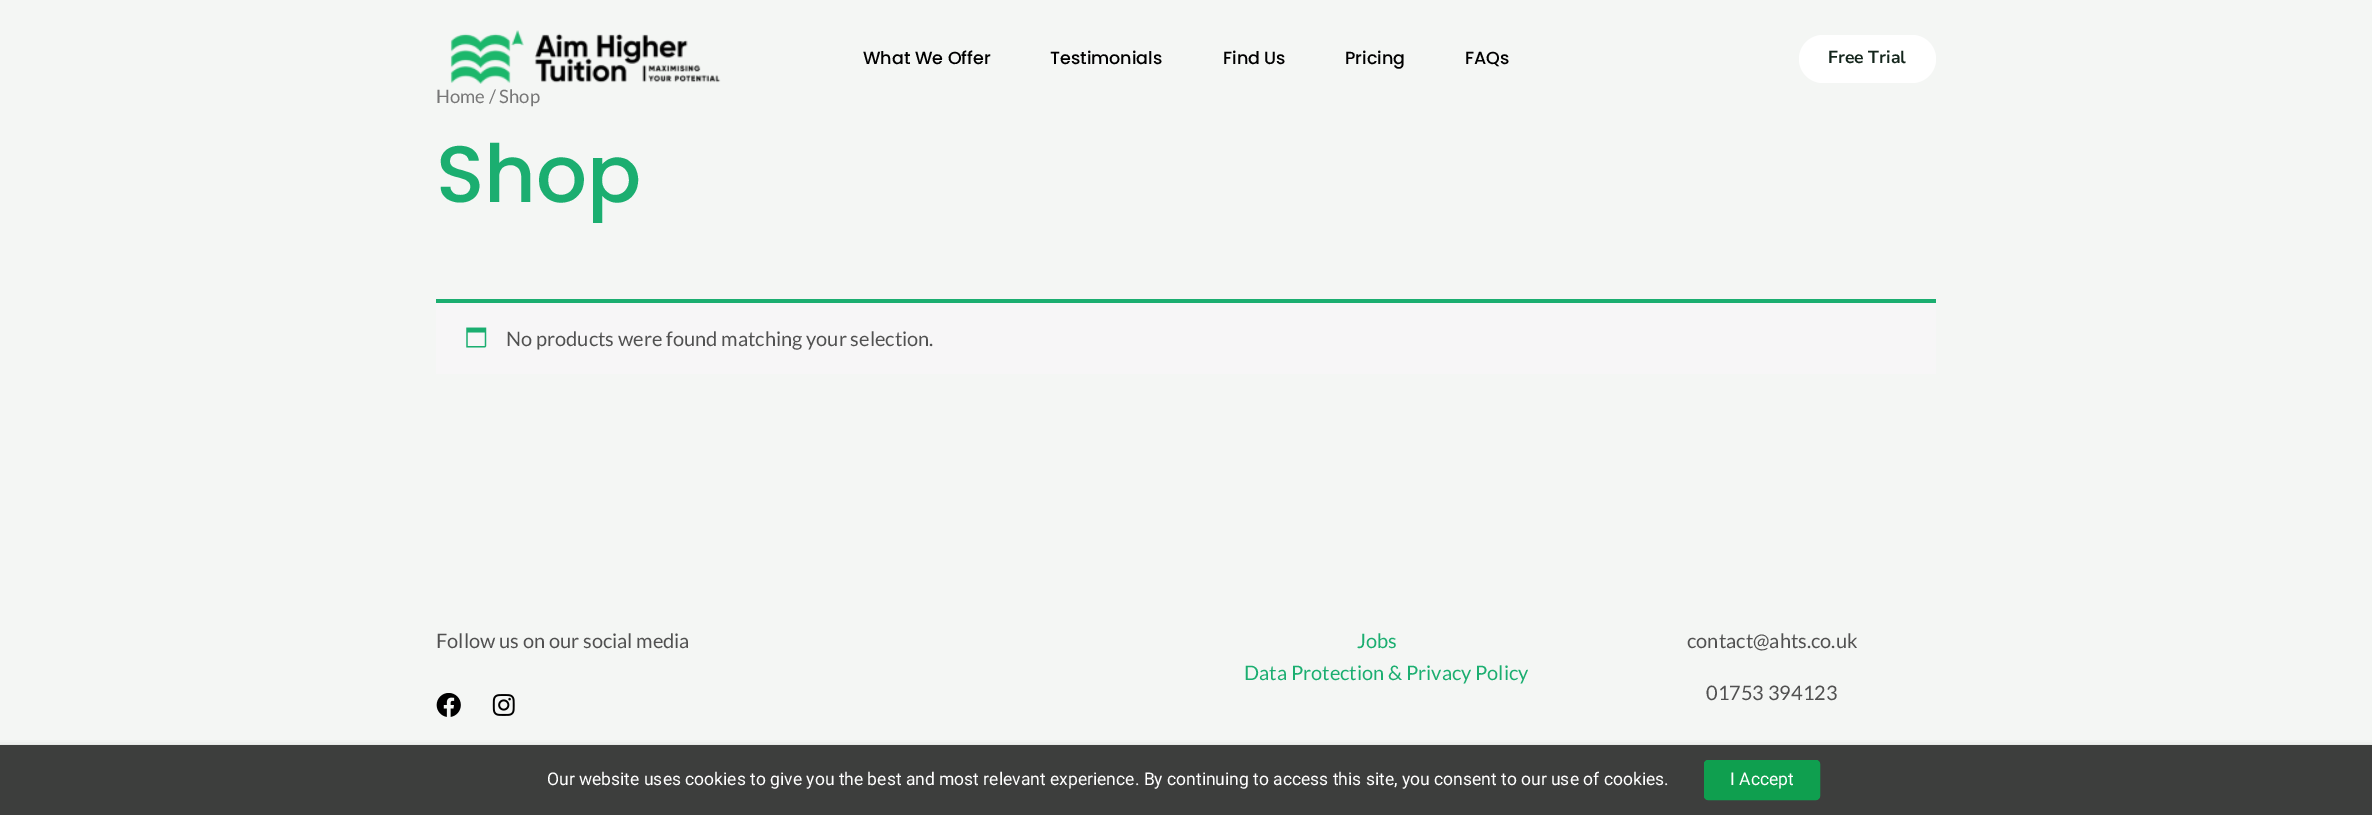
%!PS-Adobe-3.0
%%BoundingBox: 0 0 2372 815
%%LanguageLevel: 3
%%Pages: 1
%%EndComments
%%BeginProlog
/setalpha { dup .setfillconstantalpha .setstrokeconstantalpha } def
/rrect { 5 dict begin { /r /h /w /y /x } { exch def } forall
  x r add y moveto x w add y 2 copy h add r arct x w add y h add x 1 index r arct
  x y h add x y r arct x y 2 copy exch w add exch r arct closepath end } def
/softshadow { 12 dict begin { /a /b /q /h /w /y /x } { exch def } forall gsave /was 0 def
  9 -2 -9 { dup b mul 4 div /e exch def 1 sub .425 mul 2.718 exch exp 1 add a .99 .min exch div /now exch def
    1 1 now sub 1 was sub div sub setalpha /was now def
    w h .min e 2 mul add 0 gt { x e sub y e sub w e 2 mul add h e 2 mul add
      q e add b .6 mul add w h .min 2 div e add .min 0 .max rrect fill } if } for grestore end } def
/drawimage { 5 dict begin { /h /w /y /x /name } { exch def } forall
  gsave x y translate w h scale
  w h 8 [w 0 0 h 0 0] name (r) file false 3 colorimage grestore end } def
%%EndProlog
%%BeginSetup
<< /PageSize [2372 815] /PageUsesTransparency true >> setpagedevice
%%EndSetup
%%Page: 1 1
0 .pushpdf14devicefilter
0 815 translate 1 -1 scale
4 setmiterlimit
0.957 0.965 0.957 setrgbcolor
0 0 2372 815 rectfill
(images/1.raw) 450 30 271 54 drawimage
1 setgray
1799 35 137 48 24 rrect fill
0.969 0.965 0.969 setrgbcolor
436 303 1500 71 rectfill
0.106 0.682 0.439 setrgbcolor
436 299 1500 4 rectfill
(images/2.raw) 466 327 21 21 drawimage
(images/3.raw) 436 693 25 24 drawimage
(images/4.raw) 492 694 23 22 drawimage
0 setgray
0 749 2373 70 0 4 0.23 softshadow
0 749 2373 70 0 4 0.16 softshadow
0.239 0.243 0.239 setrgbcolor
0 745 2372 70 rectfill
0.059 0.624 0.31 setrgbcolor
1704.5 760.5 115 39 3.5 rrect gsave fill grestore
stroke
/Poppins-Medium [17.5 0 0 -17.5 0 0] selectfont
0 setgray
863 64 moveto (What We Offer) show
1050 64 moveto (Testimonials) show
1223 64 moveto (Find Us) show
1345 64 moveto (Pricing) show
1465 64 moveto (FAQs) show
/NunitoSans-ExtraLight [17.5 0 0 -17.5 0 0] selectfont
0.078 0.149 0.11 setrgbcolor
1828 63 moveto (Free Trial) show
/Lato-Regular [18.5 0 0 -18.5 0 0] selectfont
0.467 setgray
436 103 moveto (Home / Shop) show
/Poppins-Medium [80 0 0 -80 0 0] selectfont
0.106 0.682 0.439 setrgbcolor
436 202 moveto (Shop) show
/Lato-Regular [20 0 0 -20 0 0] selectfont
0.318 setgray
506 346 moveto (No products were found matching your selection.) show
436 648 moveto (Follow us on our social media) show
0.106 0.682 0.439 setrgbcolor
1357 648 moveto (Jobs) show
1244 680 moveto (Data Protection & Privacy Policy) show
0.318 setgray
1687 648 moveto (contact@ahts.co.uk) show
1706 700 moveto (01753 394123) show
/Roboto-Regular [17.5 0 0 -17.5 0 0] selectfont
1 setgray
547 785 moveto (Our website uses cookies to give you the best and most relevant experience. By continuing to access this site, you consent to our use of cookies.) show
1730 785 moveto (I Accept) show
.poppdf14devicefilter showpage
%%EOF
